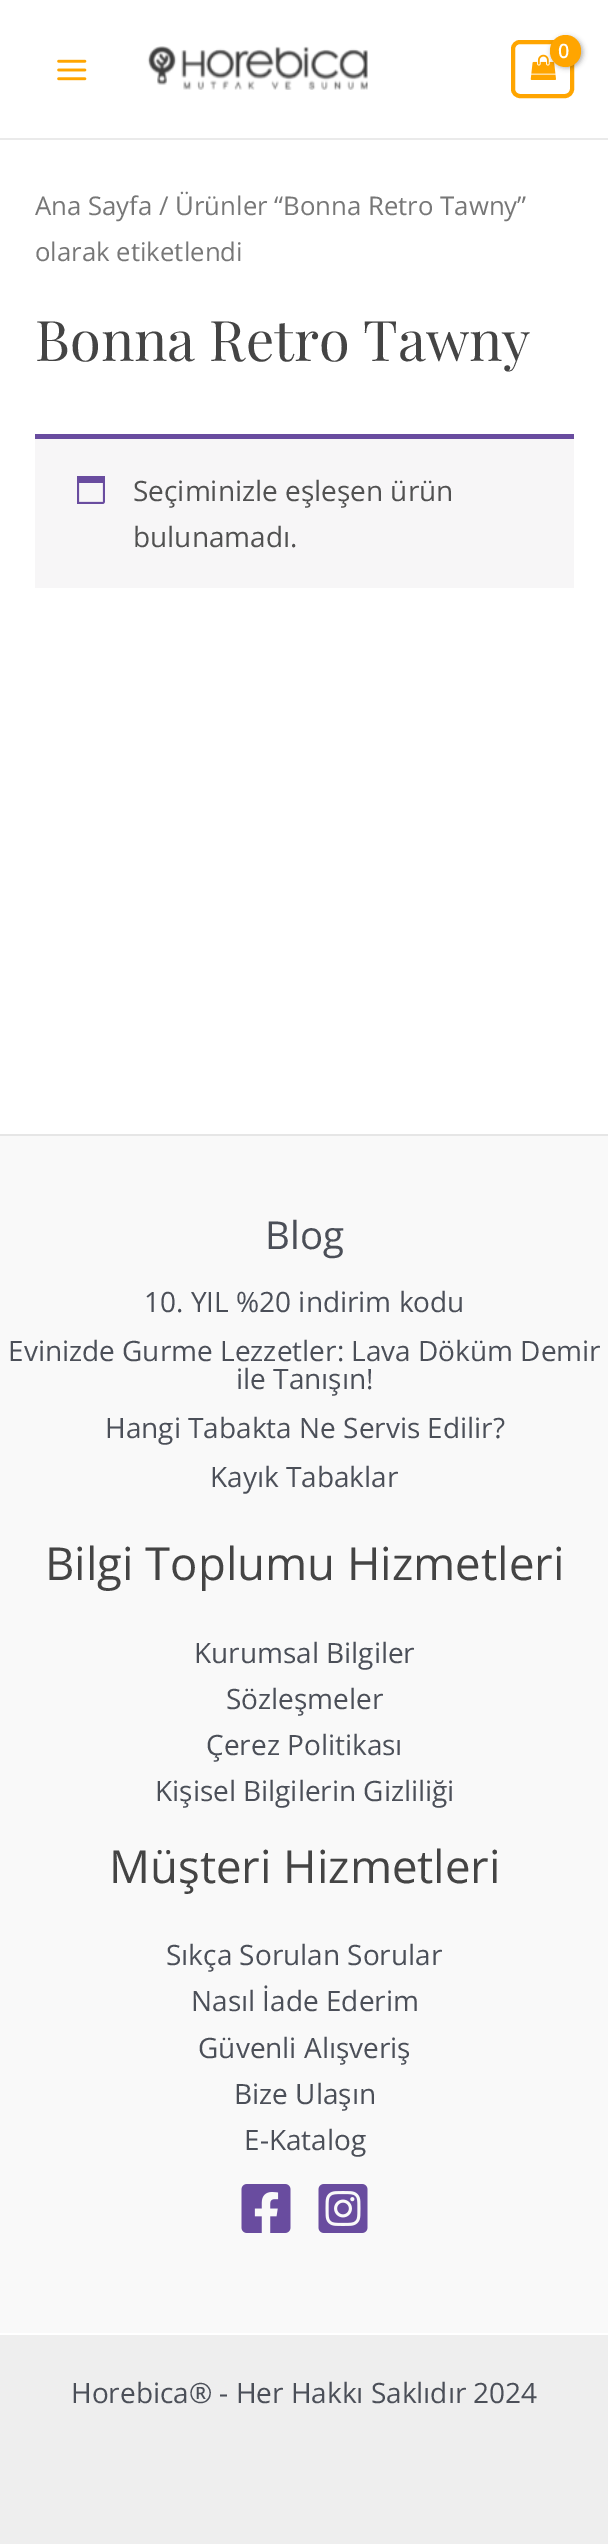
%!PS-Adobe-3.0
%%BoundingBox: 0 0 608 2544
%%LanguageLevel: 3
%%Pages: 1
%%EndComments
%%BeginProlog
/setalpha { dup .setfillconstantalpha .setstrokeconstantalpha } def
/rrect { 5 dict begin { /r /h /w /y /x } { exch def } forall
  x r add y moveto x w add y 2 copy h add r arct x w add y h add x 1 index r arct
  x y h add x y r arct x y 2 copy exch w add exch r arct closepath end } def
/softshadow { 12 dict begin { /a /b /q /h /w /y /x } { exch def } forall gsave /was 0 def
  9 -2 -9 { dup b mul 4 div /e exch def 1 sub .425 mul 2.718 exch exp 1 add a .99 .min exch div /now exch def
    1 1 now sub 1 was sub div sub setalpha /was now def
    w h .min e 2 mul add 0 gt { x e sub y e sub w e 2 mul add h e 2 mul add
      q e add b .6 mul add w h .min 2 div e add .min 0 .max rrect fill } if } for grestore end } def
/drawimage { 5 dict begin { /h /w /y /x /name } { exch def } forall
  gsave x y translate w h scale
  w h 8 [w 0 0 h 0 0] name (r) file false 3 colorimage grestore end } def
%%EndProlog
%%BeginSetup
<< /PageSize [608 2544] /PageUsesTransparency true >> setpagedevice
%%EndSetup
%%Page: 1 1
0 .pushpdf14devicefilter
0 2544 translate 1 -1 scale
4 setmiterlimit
1 setgray
0 0 608 2544 rectfill
0.918 setgray
0 138 608 2 rectfill
(images/1.raw) 57 59 30 22 drawimage
(images/2.raw) 147 46 221 44 drawimage
1 0.647 0 setrgbcolor
4 setlinewidth
513 42 59 54 7 rrect stroke
(images/3.raw) 530 54 26 26 drawimage
0 setgray
551 37 32 31 15.5 2.5 0.3 softshadow
1 0.647 0 setrgbcolor
550 35 31 32 15.5 rrect fill
0.969 0.965 0.969 setrgbcolor
35 439 539 149 rectfill
0.412 0.298 0.624 setrgbcolor
35 434 539 5 rectfill
(images/4.raw) 77 476 28 28 drawimage
0.976 setgray
0 1136 608 1197 rectfill
0.902 setgray
0 1134 608 2 rectfill
(images/5.raw) 241 2184 50 49 drawimage
(images/6.raw) 318 2184 50 49 drawimage
0.933 setgray
0 2335 608 209 rectfill
/OpenSans-Bold [19 0 0 -19 0 0] selectfont
1 setgray
558 58 moveto -1 0 (0) ashow
/OpenSans-Regular [25.75 0 0 -25.75 0 0] selectfont
0.467 setgray
35 215 moveto (Ana Sayfa / Ürünler “Bonna Retro Tawny”) show
35 261 moveto (olarak etiketlendi) show
/PlayfairDisplay-Regular [56 0 0 -56 0 0] selectfont
0.267 setgray
35 361 moveto (Bonna Retro Tawny) show
/OpenSans-Regular [28 0 0 -28 0 0] selectfont
0.318 setgray
133 501 moveto (Seçiminizle eşleşen ürün) show
133 547 moveto (bulunamadı.) show
/OpenSans-Regular [38.5 0 0 -38.5 0 0] selectfont
0.294 0.31 0.345 setrgbcolor
265 1249 moveto (Blog) show
/OpenSans-Regular [28 0 0 -28 0 0] selectfont
144 1312 moveto (10. YIL %20 indirim kodu) show
8 1361 moveto (Evinizde Gurme Lezzetler: Lava Döküm Demir) show
236 1389 moveto (ile Tanışın!) show
105 1438 moveto (Hangi Tabakta Ne Servis Edilir?) show
210 1487 moveto (Kayık Tabaklar) show
/OpenSans-Regular [45.5 0 0 -45.5 0 0] selectfont
0.267 setgray
45 1580 moveto (Bilgi Toplumu Hizmetleri) show
/OpenSans-Regular [28 0 0 -28 0 0] selectfont
0.294 0.31 0.345 setrgbcolor
194 1663 moveto (Kurumsal Bilgiler) show
226 1709 moveto (Sözleşmeler) show
206 1755 moveto (Çerez Politikası) show
155 1801 moveto (Kişisel Bilgilerin Gizliliği) show
/OpenSans-Regular [45.5 0 0 -45.5 0 0] selectfont
0.267 setgray
109 1883 moveto (Müşteri Hizmetleri) show
/OpenSans-Regular [28 0 0 -28 0 0] selectfont
0.294 0.31 0.345 setrgbcolor
166 1965 moveto (Sıkça Sorulan Sorular) show
191 2011 moveto (Nasıl İade Ederim) show
198 2058 moveto (Güvenli Alışveriş) show
234 2104 moveto (Bize Ulaşın) show
244 2150 moveto (E-Katalog) show
71 2403 moveto (Horebica® - Her Hakkı Saklıdır 2024) show
.poppdf14devicefilter showpage
%%EOF
